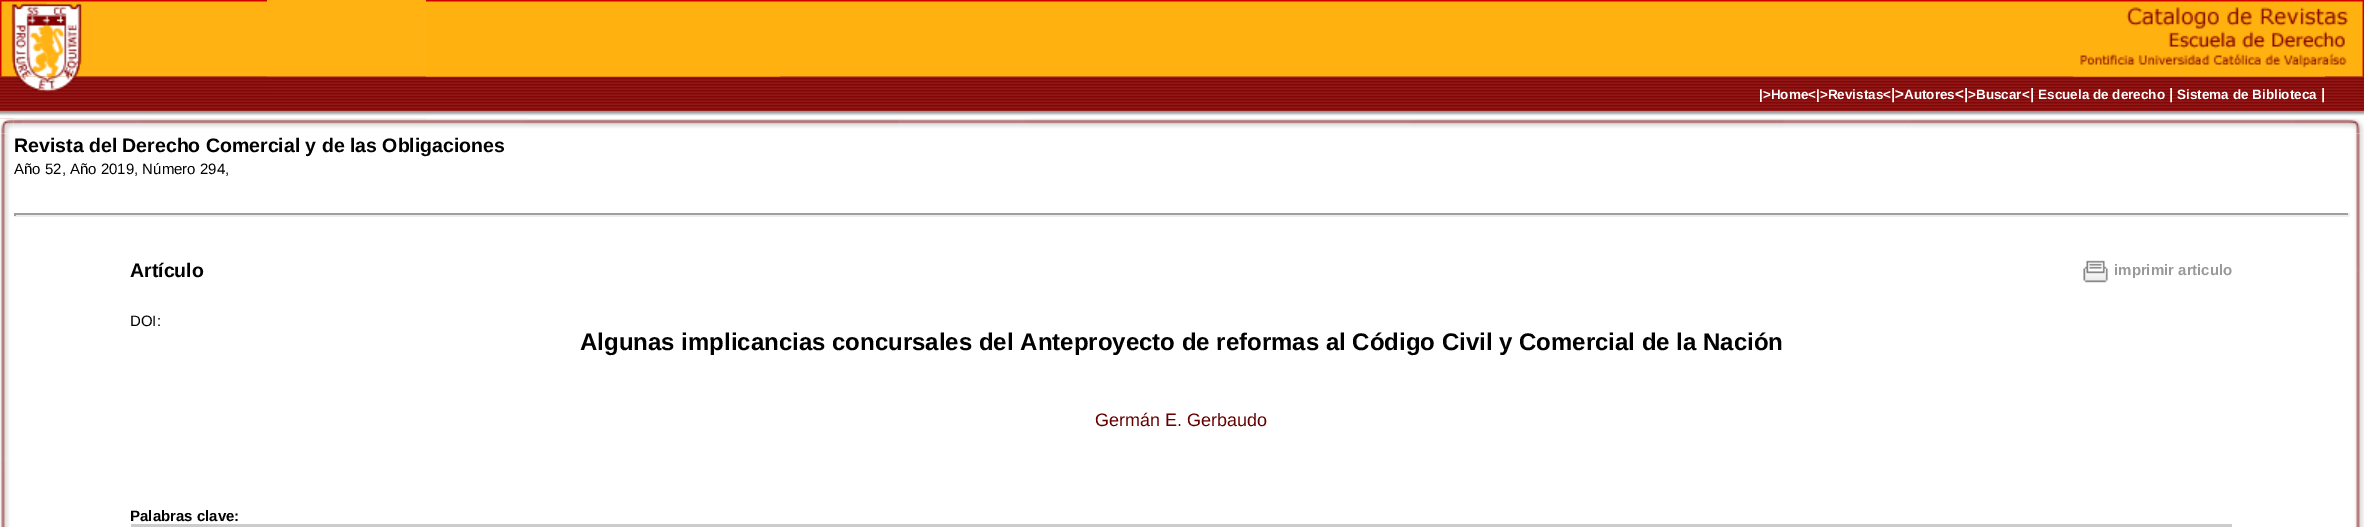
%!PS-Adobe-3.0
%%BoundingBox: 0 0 2364 527
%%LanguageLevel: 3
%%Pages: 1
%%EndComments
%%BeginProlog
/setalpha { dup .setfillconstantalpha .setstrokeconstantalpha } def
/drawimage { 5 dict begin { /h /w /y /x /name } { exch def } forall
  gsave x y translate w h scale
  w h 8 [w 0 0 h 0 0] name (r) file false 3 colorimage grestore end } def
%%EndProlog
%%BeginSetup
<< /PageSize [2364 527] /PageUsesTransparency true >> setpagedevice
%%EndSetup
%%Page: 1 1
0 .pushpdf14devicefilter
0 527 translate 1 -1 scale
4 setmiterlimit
1 setgray
0 0 2364 527 rectfill
1 0.698 0.067 setrgbcolor
0 0 426 77 rectfill
(images/5.raw) 0 76 426 35 drawimage
(images/1.raw) 0 0 267 77 drawimage
1 0.694 0.059 setrgbcolor
780 2 1584 75 rectfill
(images/7.raw) 426 76 1938 35 drawimage
(images/2.raw) 426 0 354 77 drawimage
(images/3.raw) 780 0 1584 2 drawimage
(images/4.raw) 2073 1 291 76 drawimage
(images/6.raw) 0 76 267 17 drawimage
0.5 setalpha
0.569 0.118 0.118 setrgbcolor
2325 76 39 1 rectfill
1 setalpha
(images/8.raw) 0 111 426 8 drawimage
(images/12.raw) 13 118 2336 11 drawimage
0.5 setalpha
1 setgray
14 118 412 1 rectfill
1 setalpha
(images/9.raw) 426 111 354 5 drawimage
0.984 setgray
529 118 502 1 rectfill
(images/10.raw) 780 111 1584 5 drawimage
(images/15.raw) 0 133 10 394 drawimage
(images/11.raw) 0 118 14 16 drawimage
(images/13.raw) 13 118 8 6 drawimage
(images/17.raw) 2354 133 10 394 drawimage
(images/14.raw) 2349 118 15 16 drawimage
0.624 setgray
14 213 2335 2 rectfill
0.933 setgray
2348 213 2 3 rectfill
14 215 2335 2 rectfill
0.624 setgray
14 213 2 3 rectfill
(images/16.raw) 2083 260 25 23 drawimage
0.8 setgray
131 524 2101 3 rectfill
/LiberationSans-Bold [13.5 0 0 -13.5 0 0] selectfont
1 setgray
1759 99 moveto (|>Home<|>Revistas<) show
/LiberationSans-Bold [15 0 0 -15 0 0] selectfont
1891 99 moveto (|>) show
/LiberationSans-Bold [13.5 0 0 -13.5 0 0] selectfont
1904 99 moveto (Autores) show
/LiberationSans-Bold [15 0 0 -15 0 0] selectfont
1955 99 moveto (<|) show
/LiberationSans-Bold [13.5 0 0 -13.5 0 0] selectfont
1968 99 moveto (>Buscar<) show
/LiberationSans-Bold [15 0 0 -15 0 0] selectfont
2030 99 moveto (|) show
/LiberationSans-Bold [13.5 0 0 -13.5 0 0] selectfont
2038 99 moveto (Escuela de derecho) show
/LiberationSans-Bold [15 0 0 -15 0 0] selectfont
2169 99 moveto (|) show
/LiberationSans-Bold [13.5 0 0 -13.5 0 0] selectfont
2177 99 moveto (Sistema de Biblioteca) show
/LiberationSans-Bold [15 0 0 -15 0 0] selectfont
2321 99 moveto (|) show
/LiberationSans-Bold [19.5 0 0 -19.5 0 0] selectfont
0 setgray
14 152 moveto (Revista del Derecho Comercial y de las Obligaciones) show
/LiberationSans-Regular [15 0 0 -15 0 0] selectfont
14 174 moveto (Año 52, Año 2019, Número 294,) show
/LiberationSans-Bold [19.5 0 0 -19.5 0 0] selectfont
130 277 moveto (Artículo) show
/LiberationSans-Bold [15 0 0 -15 0 0] selectfont
0.6 setgray
2114 275 moveto (imprimir articulo) show
/LiberationSans-Regular [15 0 0 -15 0 0] selectfont
0 setgray
130 326 moveto (DOI:) show
/LiberationSans-Bold [24 0 0 -24 0 0] selectfont
580 350 moveto (Algunas implicancias concursales del Anteproyecto de reformas al Código Civil y Comercial de la Nación) show
/LiberationSans-Regular [18 0 0 -18 0 0] selectfont
0.4 0 0 setrgbcolor
1095 426 moveto (Germán E. Gerbaudo) show
/LiberationSans-Bold [15 0 0 -15 0 0] selectfont
0 setgray
130 521 moveto (Palabras clave:) show
.poppdf14devicefilter showpage
%%EOF
